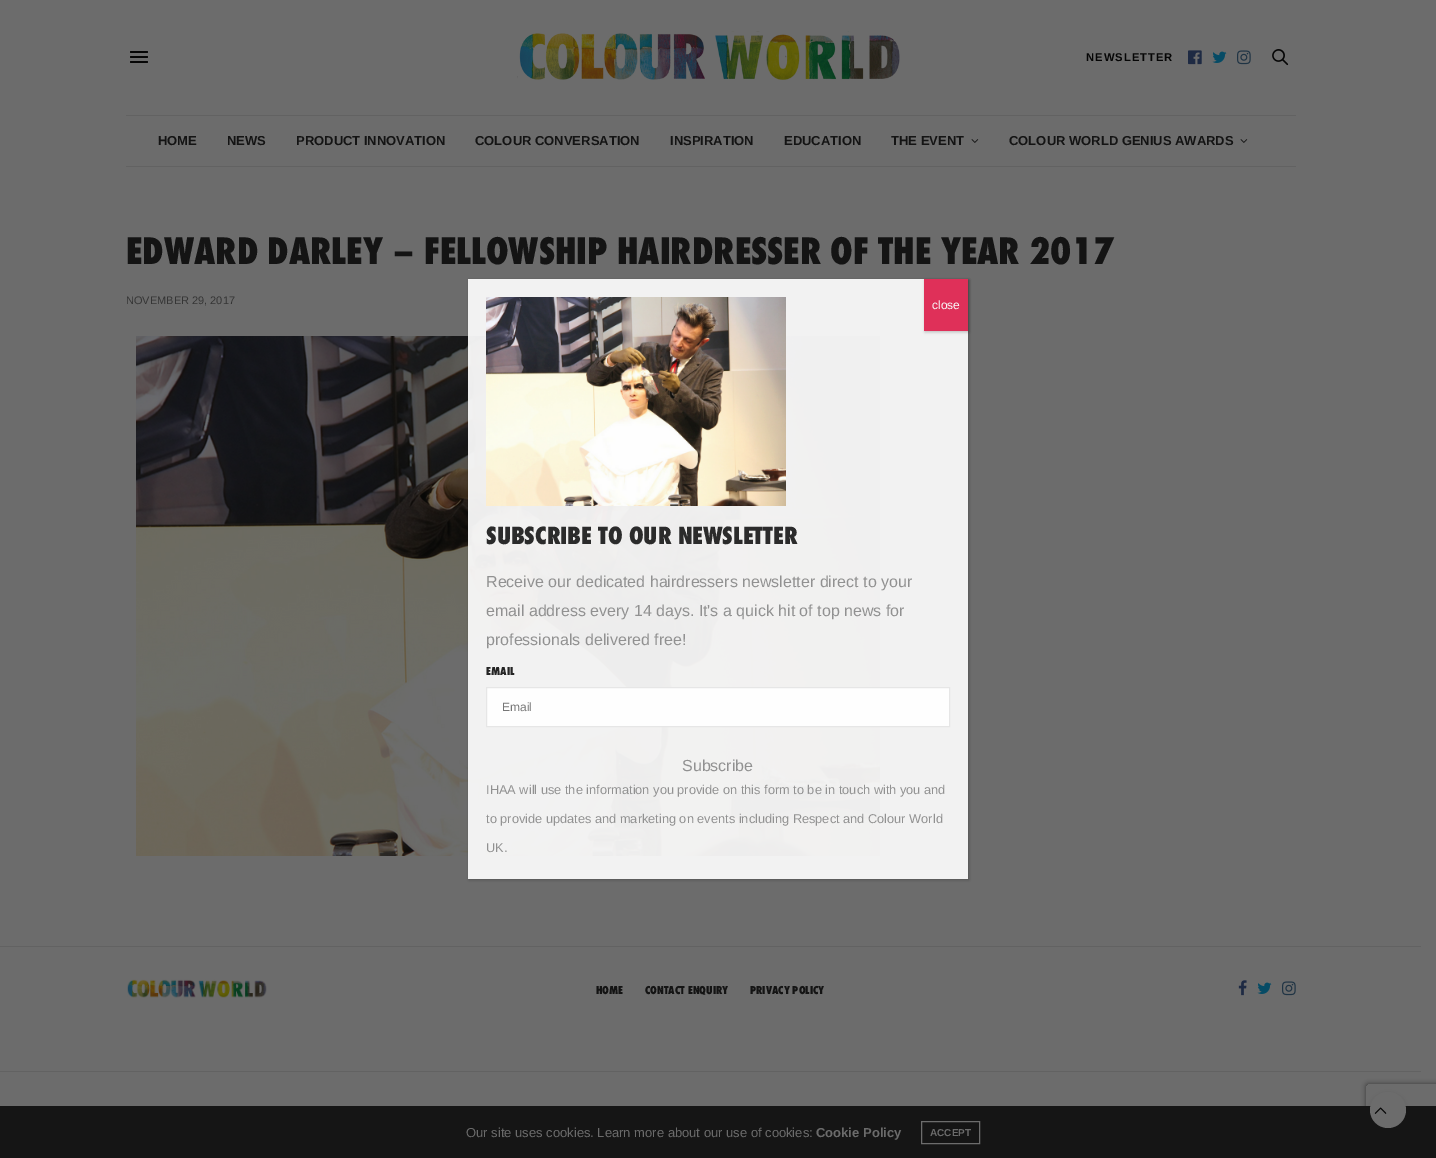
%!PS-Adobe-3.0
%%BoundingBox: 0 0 1436 1158
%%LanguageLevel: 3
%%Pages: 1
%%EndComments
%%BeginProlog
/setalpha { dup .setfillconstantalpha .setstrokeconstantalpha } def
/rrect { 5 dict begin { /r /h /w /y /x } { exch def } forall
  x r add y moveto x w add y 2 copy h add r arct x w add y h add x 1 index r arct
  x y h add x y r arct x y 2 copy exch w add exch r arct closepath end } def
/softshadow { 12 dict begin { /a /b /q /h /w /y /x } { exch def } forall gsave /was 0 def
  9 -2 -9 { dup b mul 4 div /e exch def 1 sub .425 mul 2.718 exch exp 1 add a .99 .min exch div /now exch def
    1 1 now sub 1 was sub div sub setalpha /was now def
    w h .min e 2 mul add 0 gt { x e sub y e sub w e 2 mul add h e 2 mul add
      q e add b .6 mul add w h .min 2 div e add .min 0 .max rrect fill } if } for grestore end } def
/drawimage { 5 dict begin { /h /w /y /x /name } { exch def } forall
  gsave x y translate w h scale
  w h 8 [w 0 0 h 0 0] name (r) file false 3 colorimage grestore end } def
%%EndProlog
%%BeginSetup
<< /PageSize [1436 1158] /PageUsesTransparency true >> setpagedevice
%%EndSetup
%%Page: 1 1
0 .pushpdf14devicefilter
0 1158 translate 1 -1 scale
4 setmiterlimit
0.424 setgray
0 0 1436 1158 rectfill
0.384 setgray
126 115 1170 1 rectfill
0.024 setgray
130 51 18 2 1 rrect fill
130 56 18 2 1 rrect fill
130 61 18 2 1 rrect fill
(images/1.raw) 517 31 383 49 drawimage
(images/2.raw) 1188 50 14 15 drawimage
(images/3.raw) 1212 51 15 12 drawimage
(images/4.raw) 1237 50 14 15 drawimage
(images/5.raw) 1272 49 17 17 drawimage
0.384 setgray
126 166 1170 1 rectfill
(images/6.raw) 971 139 8 4 drawimage
(images/6.raw) 1240 139 8 4 drawimage
(images/7.raw) 136 336 744 520 drawimage
0 946 1421 1 rectfill
(images/8.raw) 127 979 140 19 drawimage
(images/9.raw) 1238 980 9 16 drawimage
(images/3.raw) 1257 982 15 12 drawimage
(images/4.raw) 1282 981 14 15 drawimage
0 1071 1421 1 rectfill
gsave
newpath 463 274 moveto 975 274 lineto 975 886 lineto 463 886 lineto closepath 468 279 moveto 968 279 lineto 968 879 lineto 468 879 lineto closepath eoclip newpath
0.008 setgray
469 280 500 600 0 1.5 0.22 softshadow
grestore
0.95 setalpha
0.976 setgray
468 279 500 600 rectfill
1 setalpha
0.027 setgray
925 280 44 52 0 1.5 0.23 softshadow
0.875 0.188 0.349 setrgbcolor
924 279 44 52 rectfill
(images/10.raw) 486 297 300 209 drawimage
0.95 setalpha
1 setgray
newpath 486.5 687.5 moveto 949.5 687.5 lineto 949.5 726.5 lineto 486.5 726.5 lineto closepath fill
1 setalpha
0.902 setgray
newpath 486.5 687.5 moveto 949.5 687.5 lineto 949.5 726.5 lineto 486.5 726.5 lineto closepath stroke
gsave
newpath 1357 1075 moveto 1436 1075 lineto 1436 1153 lineto 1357 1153 lineto closepath 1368 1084 moveto 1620 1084 lineto 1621 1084 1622 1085 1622 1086 curveto 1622 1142 lineto 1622 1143 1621 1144 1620 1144 curveto 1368 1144 lineto 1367 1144 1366 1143 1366 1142 curveto 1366 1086 lineto 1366 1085 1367 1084 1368 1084 curveto closepath eoclip newpath
0.224 setgray
1366 1084 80 60 2 2.5 1 softshadow
grestore
0.99 setalpha
0.078 setgray
0 1106 1436 52 rectfill
1 setalpha
0.424 setgray
921.5 1121.5 58 22 rectstroke
0.024 setgray
1370 1094 36 36 18 4 0.1 softshadow
0.424 setgray
newpath 1388 1110 18 0 360 arc closepath fill
(images/11.raw) 1374 1107 13 7 drawimage
/LiberationSans-Bold [11.25 0 0 -11.25 0 0] selectfont
0.024 setgray
1086 61 moveto 1 0 (NEWSLETTER) ashow
/LiberationSans-Bold [13 0 0 -13 0 0] selectfont
0.078 setgray
158 145 moveto (HOME) show
227 145 moveto (NEWS) show
296 145 moveto (PRODUCT INNOVATION) show
475 145 moveto (COLOUR CONVERSATION) show
670 145 moveto (INSPIRATION) show
784 145 moveto (EDUCATION) show
891 145 moveto (THE EVENT) show
1009 145 moveto (COLOUR WORLD GENIUS AWARDS) show
/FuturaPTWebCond-ExtraBold [40 0 0 -40 0 0] selectfont
126 264 moveto (EDWARD DARLEY – FELLOWSHIP HAIRDRESSER OF THE YEAR 2017) show
/LiberationSans-Regular [11 0 0 -11 0 0] selectfont
0.208 setgray
126 304 moveto (NOVEMBER 29, 2017) show
/FuturaPTWebCond-ExtraBold [12 0 0 -12 0 0] selectfont
0.078 setgray
596 994 moveto (HOME) show
645 994 moveto (CONTACT ENQUIRY) show
750 994 moveto (PRIVACY POLICY) show
/LiberationSans-Regular [12 0 0 -12 0 0] selectfont
0.973 setgray
932 309 moveto (close) show
/FuturaPTWebCond-ExtraBold [26 0 0 -26 0 0] selectfont
0.169 setgray
486 544 moveto (SUBSCRIBE TO OUR NEWSLETTER) show
/LiberationSans-Regular [16 0 0 -16 0 0] selectfont
0.569 setgray
486 587 moveto (Receive our dedicated hairdressers newsletter direct to your) show
486 616 moveto (email address every 14 days. It's a quick hit of top news for) show
486 645 moveto (professionals delivered free!) show
/FuturaPTWebCond-ExtraBold [12 0 0 -12 0 0] selectfont
0.145 setgray
486 675 moveto (EMAIL) show
/LiberationSans-Regular [12 0 0 -12 0 0] selectfont
0.463 setgray
502 711 moveto (Email) show
/LiberationSans-Regular [16 0 0 -16 0 0] selectfont
0.569 setgray
682 771 moveto (Subscribe) show
/LiberationSans-Regular [12.8 0 0 -12.8 0 0] selectfont
486 794 moveto (IHAA will use the information you provide on this form to be in touch with you and) show
486 823 moveto (to provide updates and marketing on events including Respect and Colour World) show
486 852 moveto (UK.) show
/LiberationSans-Regular [13 0 0 -13 0 0] selectfont
0.42 setgray
466 1137 moveto (Our site uses cookies. Learn more about our use of cookies:) show
/LiberationSans-Bold [13 0 0 -13 0 0] selectfont
816 1137 moveto (Cookie Policy) show
/LiberationSans-Bold [10 0 0 -10 0 0] selectfont
930 1136 moveto (ACCEPT) show
.poppdf14devicefilter showpage
%%EOF
